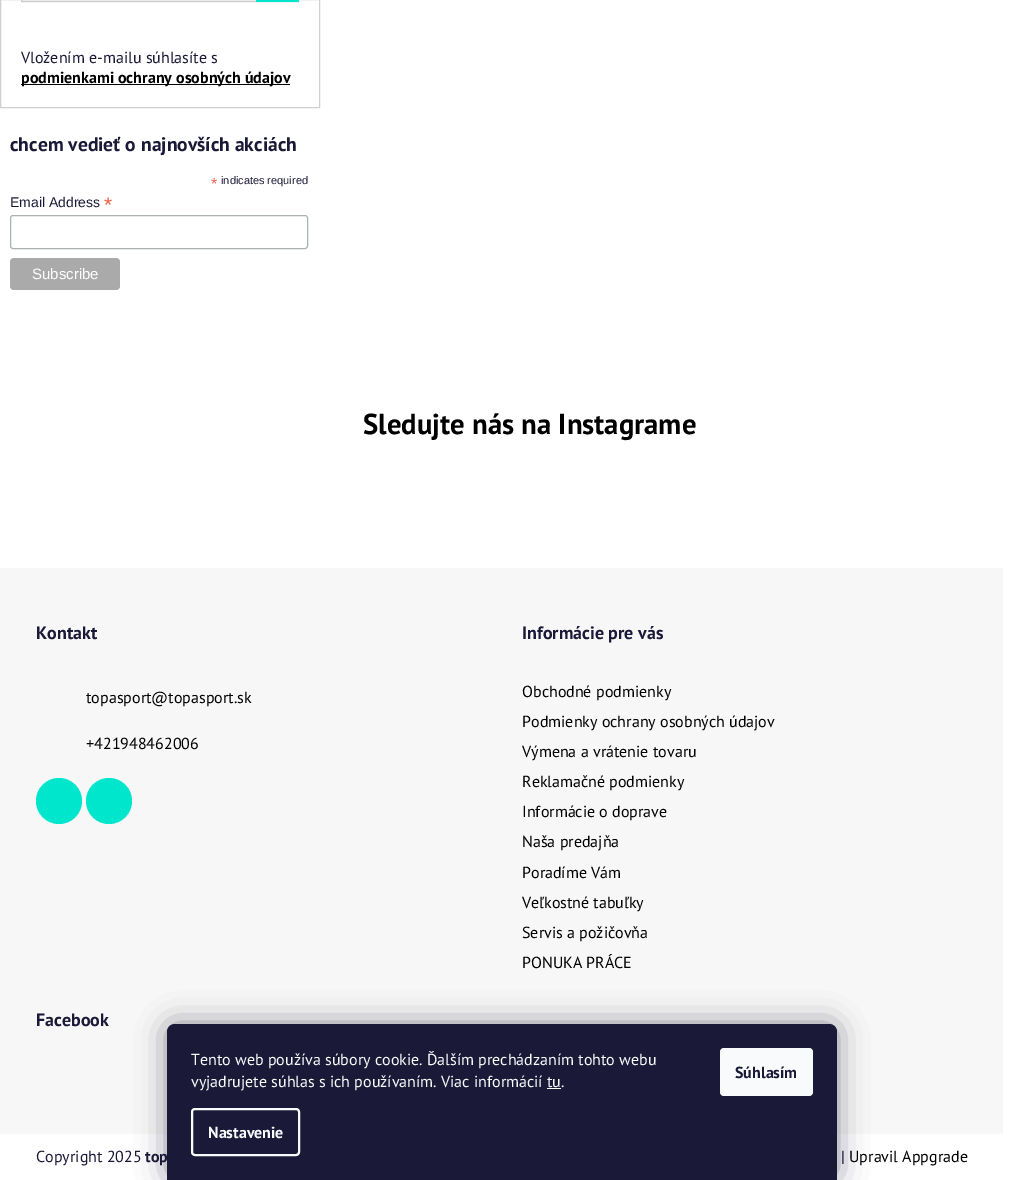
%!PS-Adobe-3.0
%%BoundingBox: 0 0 1018 1180
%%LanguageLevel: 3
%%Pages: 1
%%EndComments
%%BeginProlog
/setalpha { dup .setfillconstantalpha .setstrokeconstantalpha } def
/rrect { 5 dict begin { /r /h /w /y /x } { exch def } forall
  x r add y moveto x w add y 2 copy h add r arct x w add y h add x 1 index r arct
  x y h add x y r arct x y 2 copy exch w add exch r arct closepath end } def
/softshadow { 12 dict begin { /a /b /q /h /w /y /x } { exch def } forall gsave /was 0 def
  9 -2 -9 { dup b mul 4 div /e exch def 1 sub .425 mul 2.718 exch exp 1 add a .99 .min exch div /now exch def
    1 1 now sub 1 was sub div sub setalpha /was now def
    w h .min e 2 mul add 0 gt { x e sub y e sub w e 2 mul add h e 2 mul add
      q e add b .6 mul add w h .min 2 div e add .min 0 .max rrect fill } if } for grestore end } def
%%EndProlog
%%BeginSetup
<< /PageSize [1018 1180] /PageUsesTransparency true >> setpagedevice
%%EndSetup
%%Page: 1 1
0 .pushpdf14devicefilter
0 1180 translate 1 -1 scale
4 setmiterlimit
1 setgray
0 0 1018 1180 rectfill
0.812 setgray
0.5 -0.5 319 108 rectstroke
21.5 -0.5 277 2 rectstroke
0 0.902 0.8 setrgbcolor
256 0 43 2 rectfill
0 setgray
21 84 269 1 rectfill
0.671 0.69 0.698 setrgbcolor
10.5 215.5 297 33 2.5 rrect stroke
0.667 setgray
10 258 110 32 4 rrect fill
0.969 setgray
0 568 1003 566 rectfill
0 0.902 0.8 setrgbcolor
newpath 59 801 23 0 360 arc closepath fill
newpath 109 801 23 0 360 arc closepath fill
0.106 0.098 0.224 setrgbcolor
167 1024 670 156 8 15 0.5 softshadow
0.102 0.098 0.216 setrgbcolor
newpath 175 1024 moveto 829 1024 lineto 833.5 1024 837 1027.5 837 1032 curveto 837 1180 lineto 167 1180 lineto 167 1032 lineto 167 1027.5 170.5 1024 175 1024 curveto closepath fill
0.973 0.98 0.984 setrgbcolor
547 1088 14 1 rectfill
2 setlinewidth
192 1109 107 46 3 rrect stroke
720 1048 93 48 4 rrect fill
/PTSans-Regular [16 0 0 -16 0 0] selectfont
0.102 0.098 0.216 setrgbcolor
21 63 moveto (Vložením e-mailu súhlasíte s) show
/PTSans-Bold [16 0 0 -16 0 0] selectfont
0 setgray
21 83 moveto (podmienkami ochrany osobných údajov) show
/PTSans-Bold [19.6 0 0 -19.6 0 0] selectfont
0.102 0.098 0.216 setrgbcolor
10 151 moveto (chcem vedieť o najnovších akciách) show
/LiberationSans-Regular [16 0 0 -16 0 0] selectfont
0.91 0.361 0.255 setrgbcolor
211 189 moveto (*) show
/LiberationSans-Regular [11 0 0 -11 0 0] selectfont
0.102 0.098 0.216 setrgbcolor
221 184 moveto (indicates required) show
/LiberationSans-Regular [14 0 0 -14 0 0] selectfont
10 207 moveto (Email Address) show
/LiberationSans-Regular [21 0 0 -21 0 0] selectfont
0.91 0.361 0.255 setrgbcolor
104 212 moveto (*) show
/LiberationSans-Regular [15 0 0 -15 0 0] selectfont
1 setgray
32 279 moveto (Subscribe) show
/PTSans-Bold [28.75 0 0 -28.75 0 0] selectfont
0 setgray
363 434 moveto (Sledujte nás na Instagrame) show
/PTSans-Bold [18 0 0 -18 0 0] selectfont
0.102 0.098 0.216 setrgbcolor
36 639 moveto (Kontakt) show
/PTSans-Regular [16 0 0 -16 0 0] selectfont
0 setgray
86 703 moveto (topasport@topasport.sk) show
86 749 moveto (+421948462006) show
/PTSans-Bold [18 0 0 -18 0 0] selectfont
0.102 0.098 0.216 setrgbcolor
522 639 moveto (Informácie pre vás) show
/PTSans-Regular [16 0 0 -16 0 0] selectfont
0 setgray
522 697 moveto (Obchodné podmienky) show
522 727 moveto (Podmienky ochrany osobných údajov) show
522 757 moveto (Výmena a vrátenie tovaru) show
522 787 moveto (Reklamačné podmienky) show
522 817 moveto (Informácie o doprave) show
522 847 moveto (Naša predajňa) show
522 878 moveto (Poradíme Vám) show
522 908 moveto (Veľkostné tabuľky) show
522 938 moveto (Servis a požičovňa) show
522 968 moveto (PONUKA PRÁCE) show
/PTSans-Bold [18 0 0 -18 0 0] selectfont
0.102 0.098 0.216 setrgbcolor
36 1026 moveto (Facebook) show
/PTSans-Regular [16 0 0 -16 0 0] selectfont
36 1162 moveto (Copyright 2025) show
/PTSans-Bold [16 0 0 -16 0 0] selectfont
145 1162 moveto (top) show
/PTSans-Regular [16 0 0 -16 0 0] selectfont
841 1162 moveto (|) show
0 setgray
849 1162 moveto (Upravil Appgrade) show
0.973 0.98 0.984 setrgbcolor
191 1065 moveto (Tento web používa súbory cookie. Ďalším prechádzaním tohto webu) show
191 1087 moveto (vyjadrujete súhlas s ich používaním. Viac informácií tu.) show
/PTSans-Bold [16 0 0 -16 0 0] selectfont
208 1138 moveto (Nastavenie) show
0.102 0.098 0.216 setrgbcolor
735 1078 moveto (Súhlasím) show
.poppdf14devicefilter showpage
%%EOF
